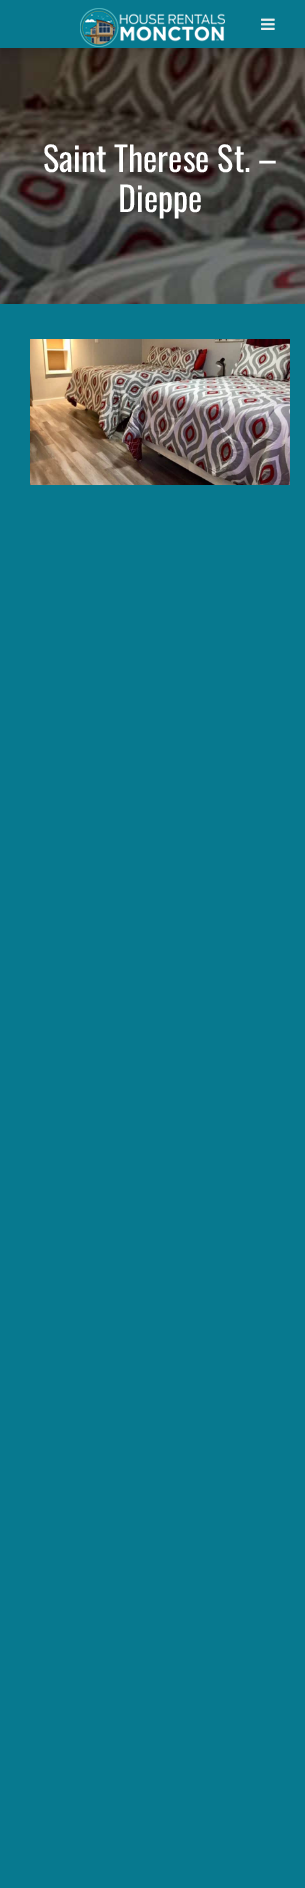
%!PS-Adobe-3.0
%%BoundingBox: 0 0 305 1888
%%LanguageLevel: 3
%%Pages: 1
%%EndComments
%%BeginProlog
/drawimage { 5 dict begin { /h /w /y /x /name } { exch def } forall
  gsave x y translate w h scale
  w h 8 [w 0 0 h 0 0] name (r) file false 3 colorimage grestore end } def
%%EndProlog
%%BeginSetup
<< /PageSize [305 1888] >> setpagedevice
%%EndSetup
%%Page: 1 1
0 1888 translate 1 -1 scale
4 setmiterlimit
0.027 0.475 0.561 setrgbcolor
0 0 305 1888 rectfill
(images/1.raw) 80 8 145 39 drawimage
(images/2.raw) 261 18 14 12 drawimage
(images/3.raw) 0 48 305 256 drawimage
(images/4.raw) 30 339 260 146 drawimage
/Oswald-Regular [34 0 0 -34 0 0] selectfont
1 setgray
43 172 moveto (Saint Therese St. –) show
118 212 moveto (Dieppe) show
showpage
%%EOF
